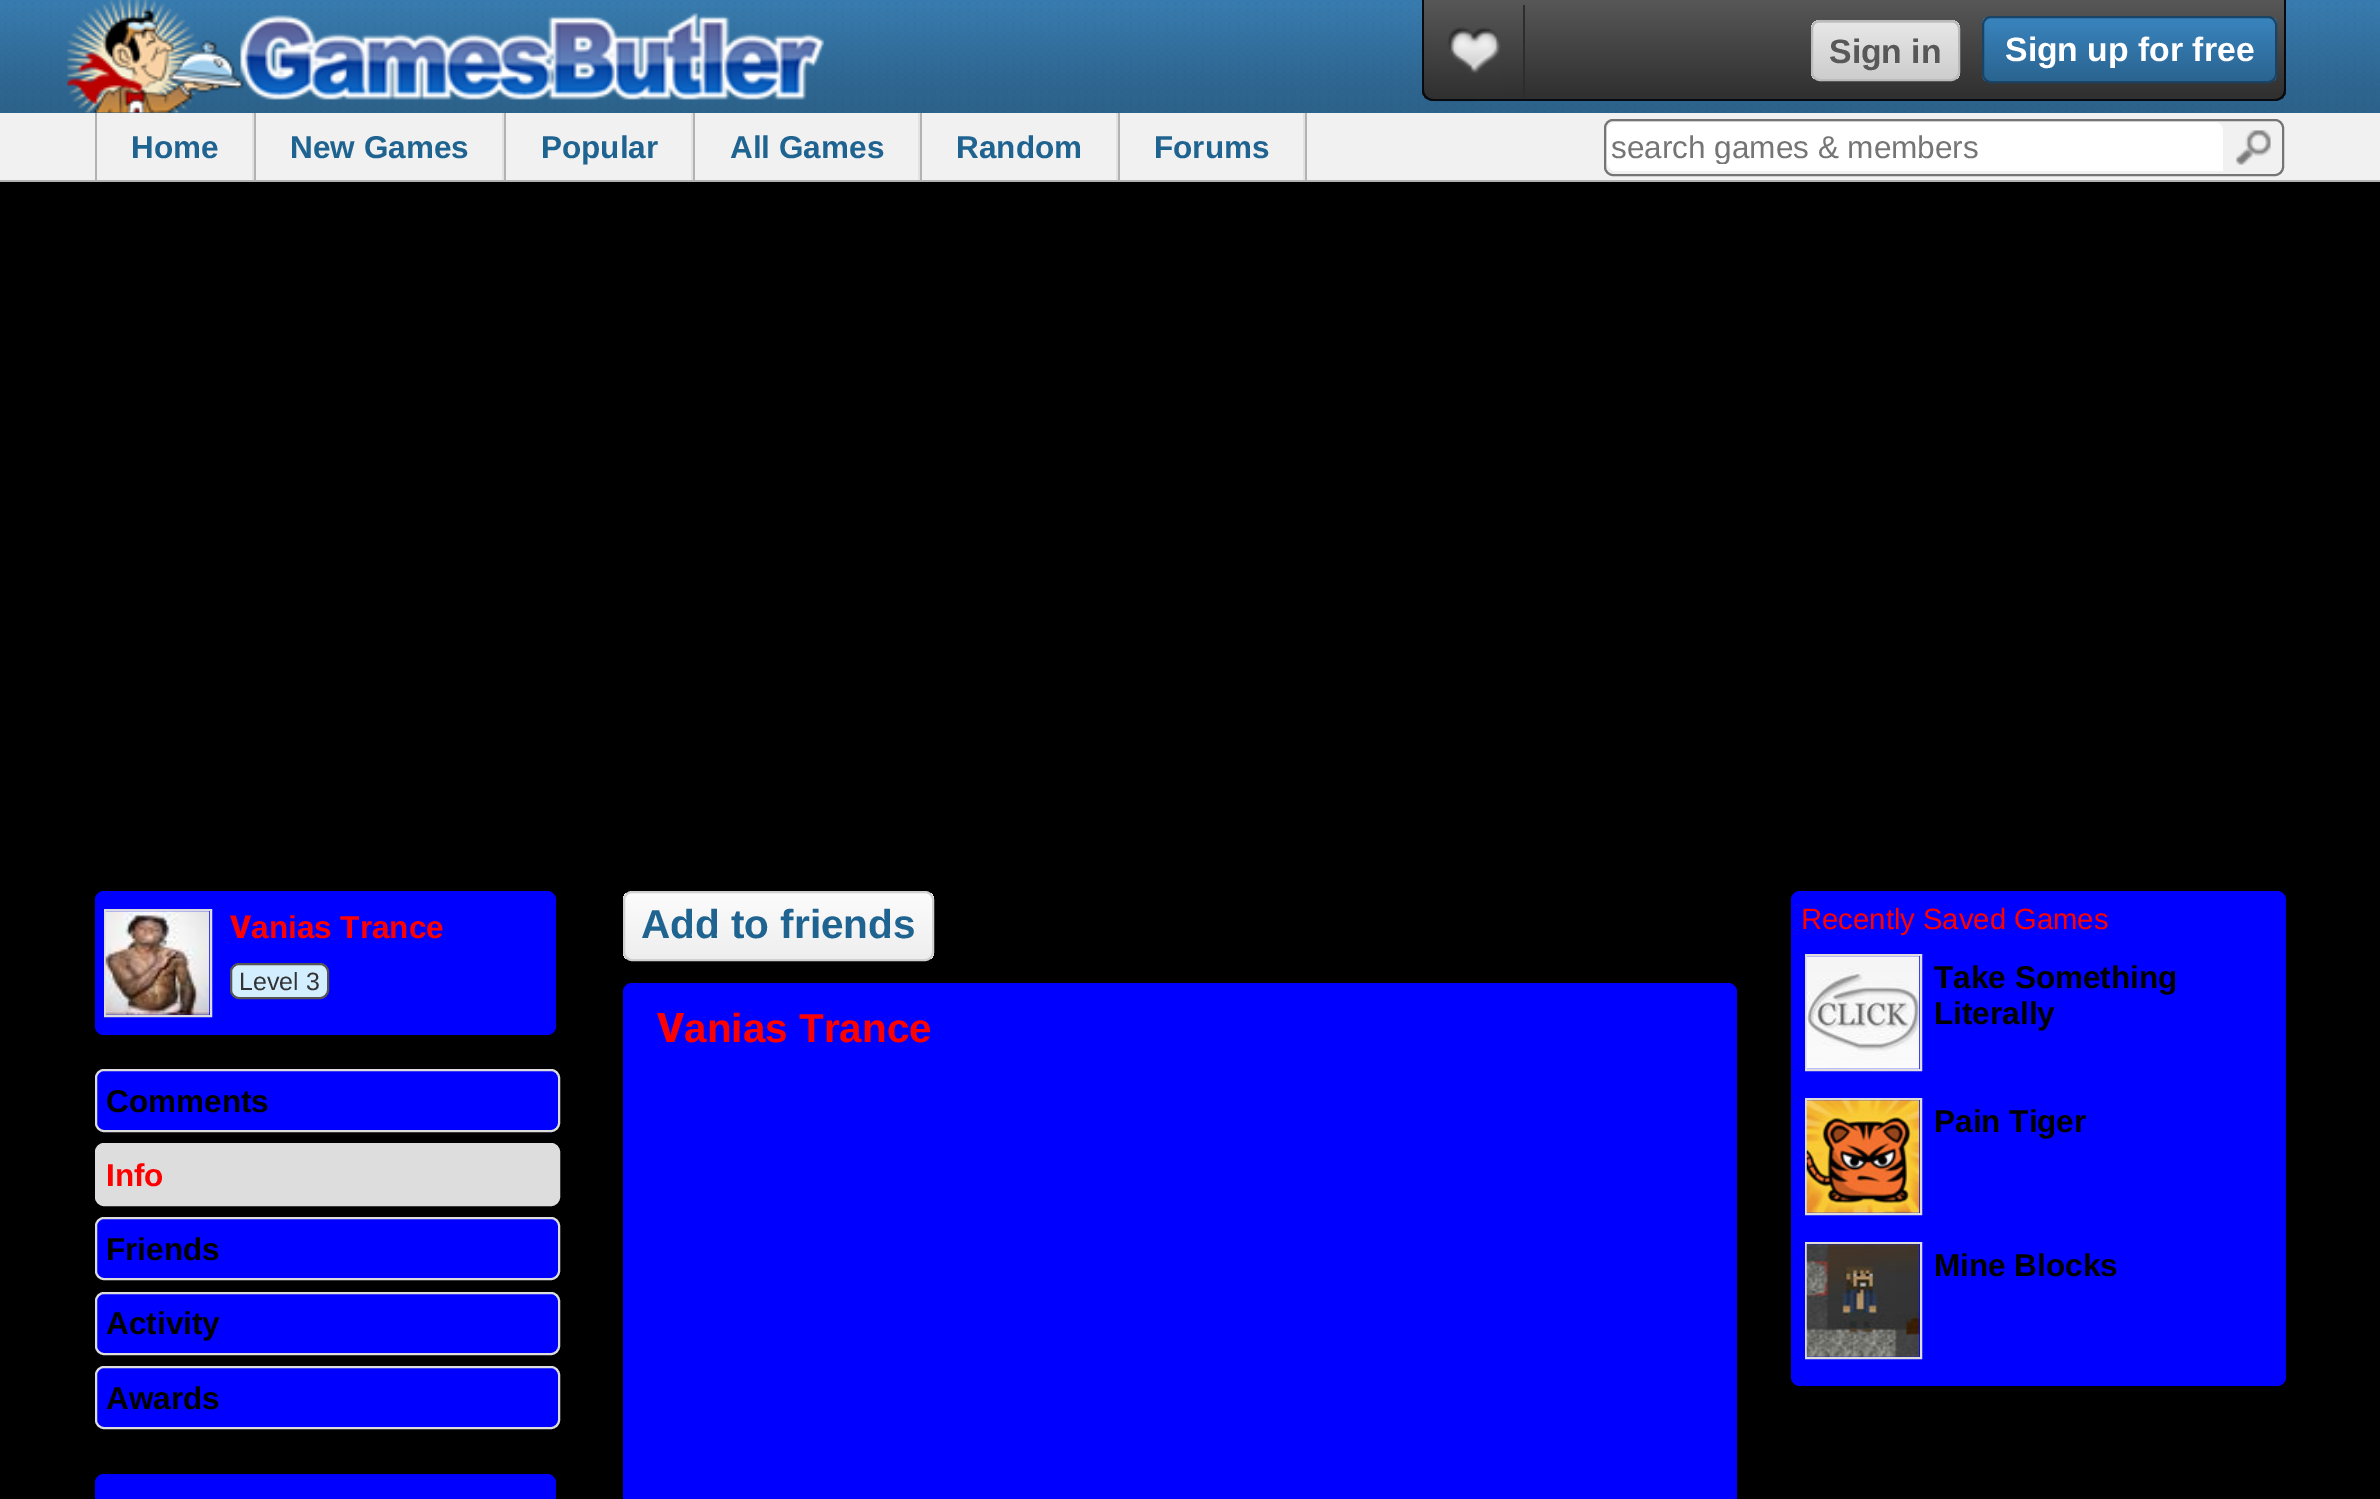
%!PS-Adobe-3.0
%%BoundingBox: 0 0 2380 1499
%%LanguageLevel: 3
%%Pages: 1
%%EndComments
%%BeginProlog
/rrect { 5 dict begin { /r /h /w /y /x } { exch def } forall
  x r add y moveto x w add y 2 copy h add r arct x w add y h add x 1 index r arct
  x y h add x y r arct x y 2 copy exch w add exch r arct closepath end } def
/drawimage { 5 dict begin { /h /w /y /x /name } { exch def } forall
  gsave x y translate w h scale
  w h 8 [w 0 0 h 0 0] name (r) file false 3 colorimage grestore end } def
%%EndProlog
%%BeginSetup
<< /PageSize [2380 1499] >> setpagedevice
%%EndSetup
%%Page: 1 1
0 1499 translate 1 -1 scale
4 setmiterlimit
0.165 0.392 0.565 setrgbcolor
0 0 2380 1499 rectfill
(images/1.raw) 0 0 2380 113 drawimage
(images/2.raw) 67 0 758 113 drawimage
gsave
newpath 1422 0 moveto 2286 0 lineto 2286 90 lineto 2286 96 2281 101 2275 101 curveto 1433 101 lineto 1427 101 1422 96 1422 90 curveto closepath clip newpath
gsave newpath 1422 0 moveto 2286 0 lineto 2286 99 lineto 1422 99 lineto closepath clip newpath
<< /ShadingType 2 /ColorSpace /DeviceRGB /Coords [1424 0 1424 99] /Extend [true true] /Function << /FunctionType 2 /Domain [0 1] /C0 [0.345 0.341 0.341] /C1 [0.184 0.184 0.184] /N 1 >> >> shfill grestore
grestore
0.02 0.043 0.063 setrgbcolor
newpath 1422 0 moveto 2286 0 lineto 2286 90 lineto 2286 96 2281 101 2275 101 curveto 1433 101 lineto 1427 101 1422 96 1422 90 curveto closepath 1424 0 moveto 2284 0 lineto 2284 90 lineto 2284 95 2280 99 2275 99 curveto 1433 99 lineto 1428 99 1424 95 1424 90 curveto closepath eofill
(images/3.raw) 1433 27 68 75 drawimage
0.176 setgray
1523 5 2 92 rectfill
gsave
1811 20 149 61 9 rrect clip newpath
gsave newpath 1811 20 moveto 1960 20 lineto 1960 23 lineto 1811 23 lineto closepath clip newpath
<< /ShadingType 2 /ColorSpace /DeviceRGB /Coords [1814 -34 1814 23] /Extend [true true] /Function << /FunctionType 2 /Domain [0 1] /C0 [0.906 0.906 0.906] /C1 [0.804 0.804 0.804] /N 1 >> >> shfill grestore
gsave newpath 1811 23 moveto 1960 23 lineto 1960 79 lineto 1811 79 lineto closepath clip newpath
<< /ShadingType 2 /ColorSpace /DeviceRGB /Coords [1814 23 1814 79] /Extend [true true] /Function << /FunctionType 2 /Domain [0 1] /C0 [0.906 0.906 0.906] /C1 [0.804 0.804 0.804] /N 1 >> >> shfill grestore
grestore
0.733 setgray
2 setlinewidth
1812 21 147 59 8 rrect stroke
gsave
1982 16 295 67 9 rrect clip newpath
gsave newpath 1982 18 moveto 2277 18 lineto 2277 81 lineto 1982 81 lineto closepath clip newpath
<< /ShadingType 2 /ColorSpace /DeviceRGB /Coords [1985 18 1985 81] /Extend [true true] /Function << /FunctionType 2 /Domain [0 1] /C0 [0.224 0.518 0.745] /C1 [0.165 0.392 0.565] /N 1 >> >> shfill grestore
grestore
0.098 0.267 0.4 setrgbcolor
1983 17 293 65 8 rrect stroke
0.945 setgray
0 113 2380 67 rectfill
0.698 setgray
0 180 2380 2 rectfill
1305 113 2 67 rectfill
0.886 setgray
252 113 2 67 rectfill
0.698 setgray
95 113 2 67 rectfill
0.886 setgray
502 113 2 67 rectfill
0.698 setgray
254 113 2 67 rectfill
0.886 setgray
691 113 2 67 rectfill
0.698 setgray
504 113 2 67 rectfill
0.886 setgray
918 113 2 67 rectfill
0.698 setgray
693 113 2 67 rectfill
0.886 setgray
1116 113 2 67 rectfill
0.698 setgray
920 113 2 67 rectfill
0.886 setgray
1303 113 2 67 rectfill
0.698 setgray
1118 113 2 67 rectfill
0.459 setgray
1605 120 678 55 8 rrect stroke
1 setgray
newpath 1616 122 moveto 2214 122 lineto 2219 122 2223 126 2223 131 curveto 2223 171 lineto 1616 171 lineto 1611 171 1607 167 1607 162 curveto 1607 131 lineto 1607 126 1611 122 1616 122 curveto closepath fill
(images/4.raw) 2236 130 35 35 drawimage
0 setgray
0 182 2380 1317 rectfill
0 0 1 setrgbcolor
95 891 461 144 9 rrect fill
0.867 setgray
105 910 106 106 rectstroke
(images/5.raw) 105 911 105 104 drawimage
0.827 0.937 1 setrgbcolor
231 964 97 34 8 rrect gsave fill grestore
0.333 setgray
stroke
0 0 1 setrgbcolor
96 1070 463 61 8 rrect gsave fill grestore
0.867 setgray
stroke
96 1144 463 61 8 rrect gsave fill grestore
stroke
0 0 1 setrgbcolor
96 1218 463 61 8 rrect gsave fill grestore
0.867 setgray
stroke
0 0 1 setrgbcolor
96 1293 463 61 8 rrect gsave fill grestore
0.867 setgray
stroke
0 0 1 setrgbcolor
96 1367 463 61 8 rrect gsave fill grestore
0.867 setgray
stroke
0 0 1 setrgbcolor
95 1474 461 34 9 rrect fill
gsave
623 891 311 70 9 rrect clip newpath
gsave newpath 623 893 moveto 934 893 lineto 934 959 lineto 623 959 lineto closepath clip newpath
<< /ShadingType 2 /ColorSpace /DeviceRGB /Coords [626 893 626 959] /Extend [true true] /Function << /FunctionType 2 /Domain [0 1] /C0 [0.988 0.988 0.988] /C1 [0.933 0.933 0.933] /N 1 >> >> shfill grestore
grestore
0.816 setgray
624 892 309 68 8 rrect stroke
0 0 1 setrgbcolor
623 983 1114 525 9 rrect fill
1791 891 495 495 9 rrect fill
0.867 setgray
1806 955 115 115 rectstroke
(images/6.raw) 1806 956 114 113 drawimage
1806 1099 115 115 rectstroke
(images/7.raw) 1806 1100 114 113 drawimage
1806 1243 115 115 rectstroke
(images/8.raw) 1806 1244 114 113 drawimage
/LiberationSans-Bold [33.75 0 0 -33.75 0 0] selectfont
0.345 setgray
1829 63 moveto (Sign in) show
1 setgray
2005 61 moveto (Sign up for free) show
/LiberationSans-Bold [31.5 0 0 -31.5 0 0] selectfont
0.122 0.388 0.569 setrgbcolor
131 158 moveto (Home) show
290 158 moveto (New Games) show
541 158 moveto (Popular) show
730 158 moveto (All Games) show
956 158 moveto (Random) show
1154 158 moveto (Forums) show
gsave
1611 128 608 36 rectclip
/LiberationSans-Regular [31.5 0 0 -31.5 0 0] selectfont
0.459 setgray
1611 158 moveto (search games & members) show
grestore
/NotoSans-ExtraBold [31.5 0 0 -31.5 0 0] selectfont
1 0 0 setrgbcolor
230 938 moveto (V) show
/LiberationSans-Bold [31.5 0 0 -31.5 0 0] selectfont
251 938 moveto (anias Trance) show
/LiberationSans-Regular [25 0 0 -25 0 0] selectfont
0.2 setgray
239 990 moveto (Level 3) show
/LiberationSans-Bold [31.5 0 0 -31.5 0 0] selectfont
0 setgray
106 1112 moveto (Comments) show
1 0 0 setrgbcolor
106 1186 moveto (Info) show
0 setgray
106 1260 moveto (Friends) show
106 1334 moveto (Activity) show
106 1409 moveto (Awards) show
/LiberationSans-Bold [40.5 0 0 -40.5 0 0] selectfont
0.122 0.388 0.569 setrgbcolor
641 938 moveto (Add to friends) show
/NotoSans-ExtraBold [40.5 0 0 -40.5 0 0] selectfont
1 0 0 setrgbcolor
657 1042 moveto (V) show
/LiberationSans-Bold [40.5 0 0 -40.5 0 0] selectfont
684 1042 moveto (anias Trance) show
/LiberationSans-Regular [29.25 0 0 -29.25 0 0] selectfont
1801 929 moveto (Recently Saved Games) show
/LiberationSans-Bold [31.5 0 0 -31.5 0 0] selectfont
0 setgray
1934 988 moveto (Take Something) show
1934 1024 moveto (Literally) show
1934 1132 moveto (Pain Tiger) show
1934 1276 moveto (Mine Blocks) show
showpage
%%EOF
